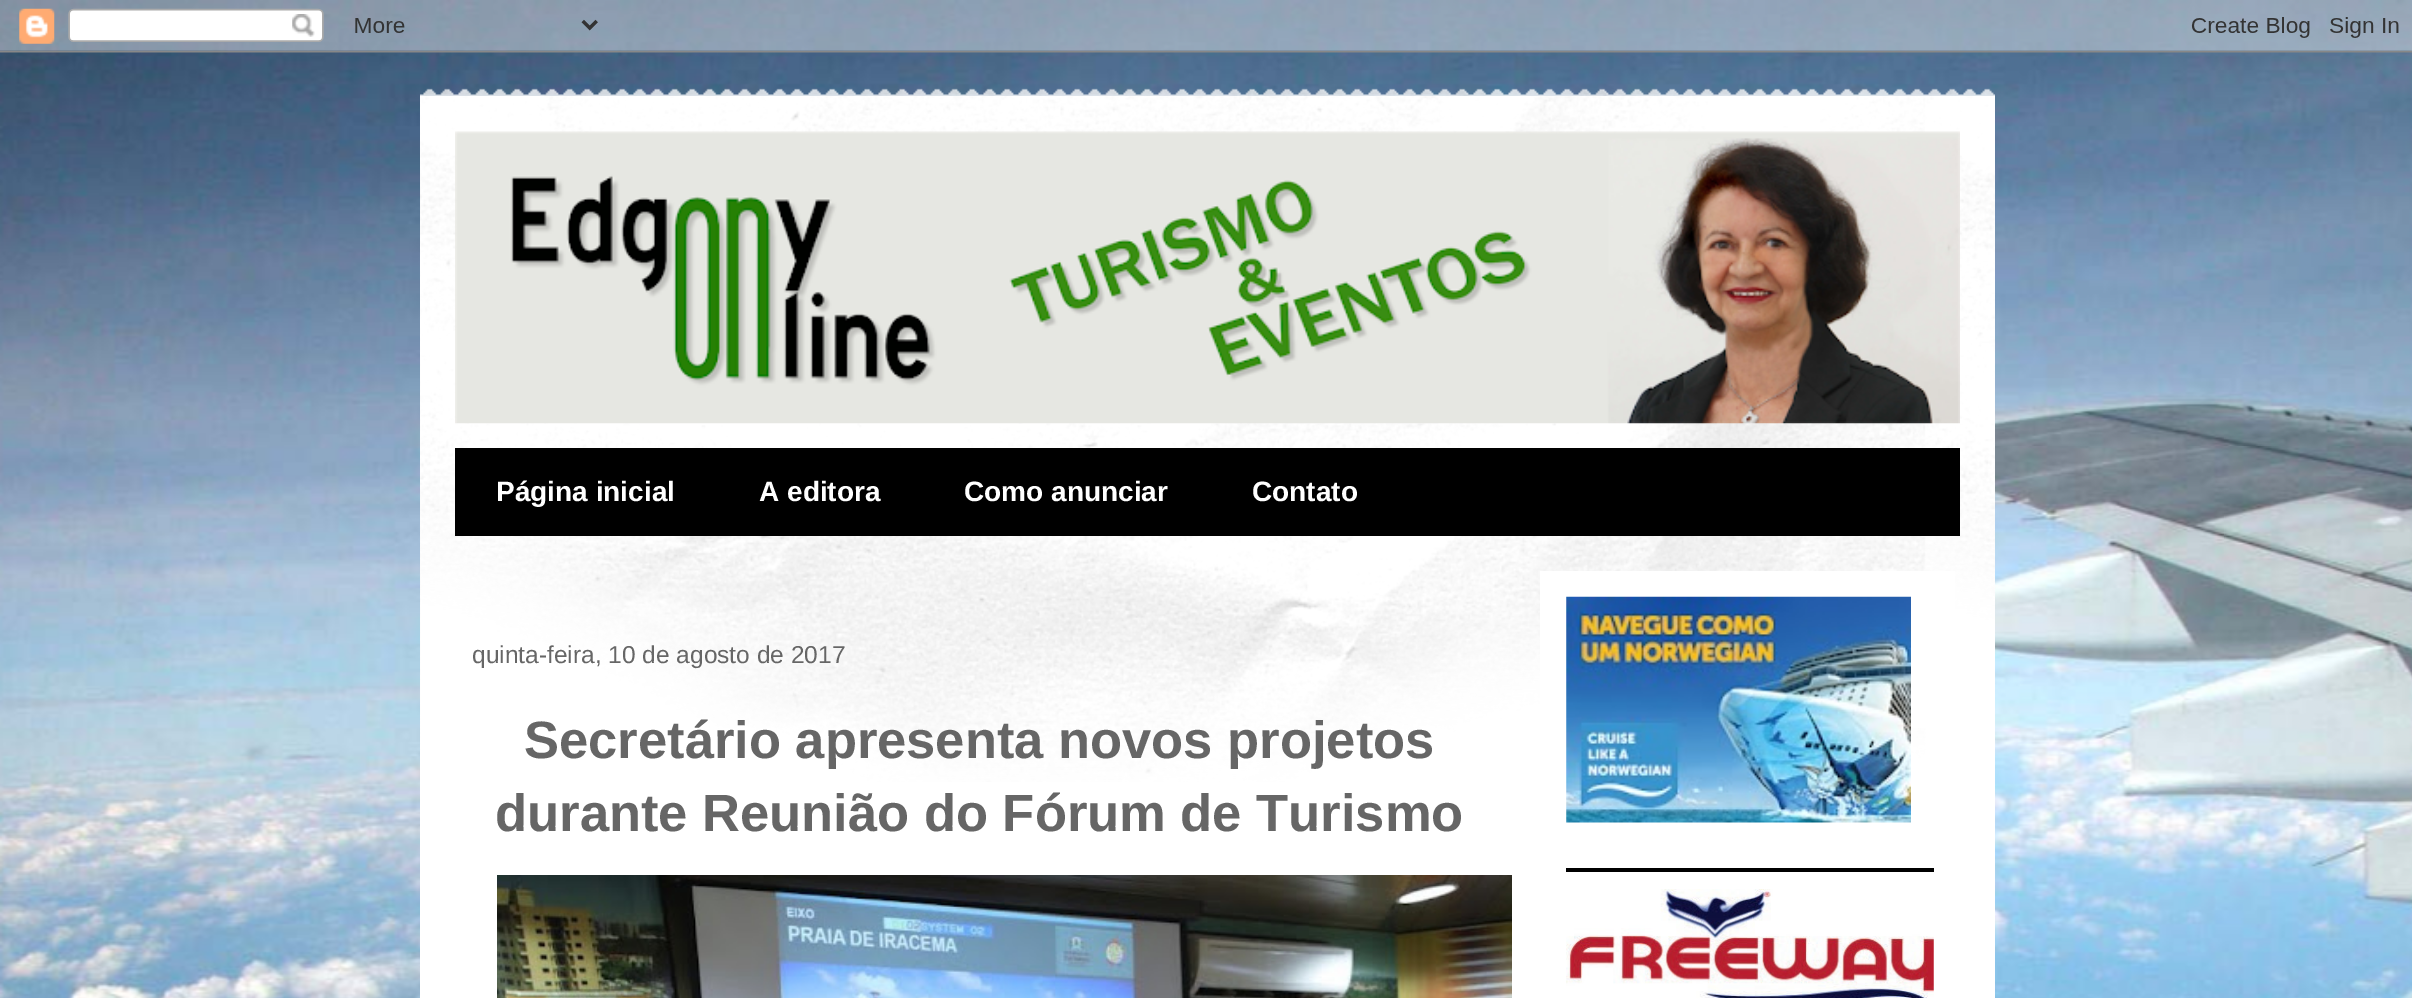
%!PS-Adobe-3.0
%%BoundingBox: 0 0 2412 998
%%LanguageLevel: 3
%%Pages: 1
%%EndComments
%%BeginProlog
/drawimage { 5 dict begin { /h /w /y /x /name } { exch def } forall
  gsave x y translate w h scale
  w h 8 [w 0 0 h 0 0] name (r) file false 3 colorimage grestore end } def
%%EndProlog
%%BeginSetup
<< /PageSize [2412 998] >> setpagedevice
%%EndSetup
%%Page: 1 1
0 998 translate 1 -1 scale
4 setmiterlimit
1 setgray
0 0 2412 998 rectfill
(images/1.raw) 0 0 2412 998 drawimage
(images/2.raw) 0 0 2412 53 drawimage
(images/3.raw) 420 88 1575 8 drawimage
420 96 1575 902 rectfill
(images/4.raw) 420 96 1575 686 drawimage
(images/5.raw) 455 131 1505 293 drawimage
0 setgray
455 448 1505 88 rectfill
(images/6.raw) 497 875 1015 123 drawimage
1566 868 368 4 rectfill
1 setgray
1540 571 415 157 rectfill
(images/7.raw) 1566 596 345 227 drawimage
(images/8.raw) 1566 889 368 109 drawimage
/LiberationSans-Bold [28 0 0 -28 0 0] selectfont
496 501 moveto (Página inicial) show
759 501 moveto (A editora) show
964 501 moveto (Como anunciar) show
1252 501 moveto (Contato) show
/LiberationSans-Regular [24.5 0 0 -24.5 0 0] selectfont
0.4 setgray
472 663 moveto (quinta-feira, 10 de agosto de 2017) show
/LiberationSans-Bold [52.5 0 0 -52.5 0 0] selectfont
524 758 moveto (Secretário apresenta novos projetos) show
495 831 moveto (durante Reunião do Fórum de Turismo) show
showpage
%%EOF
